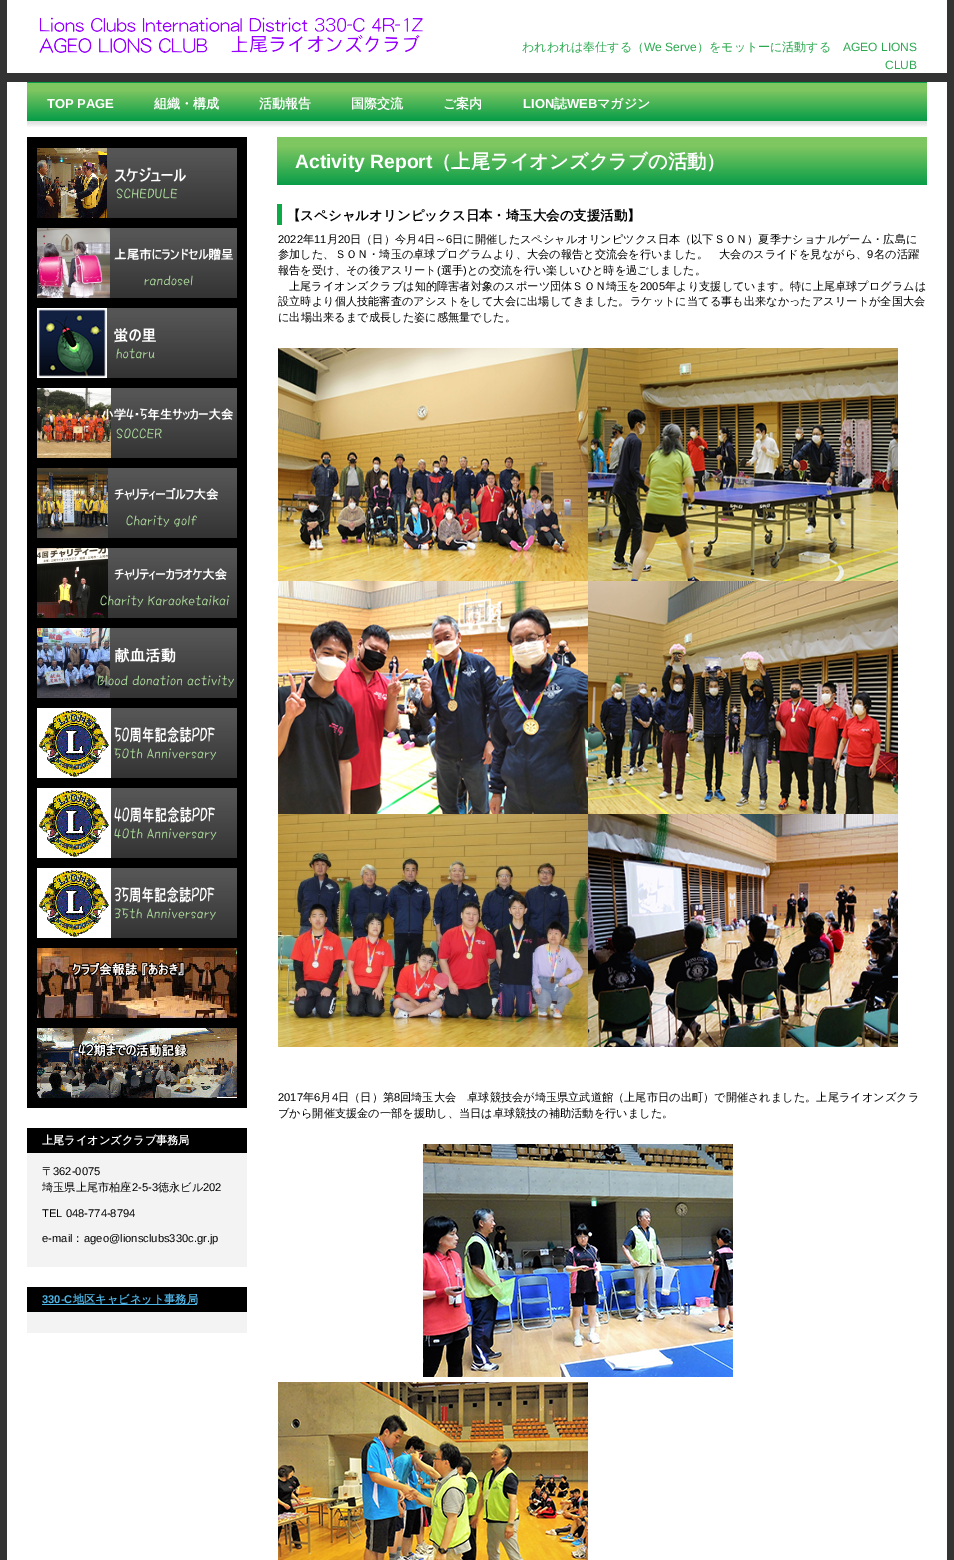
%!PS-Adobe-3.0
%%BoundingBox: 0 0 954 1560
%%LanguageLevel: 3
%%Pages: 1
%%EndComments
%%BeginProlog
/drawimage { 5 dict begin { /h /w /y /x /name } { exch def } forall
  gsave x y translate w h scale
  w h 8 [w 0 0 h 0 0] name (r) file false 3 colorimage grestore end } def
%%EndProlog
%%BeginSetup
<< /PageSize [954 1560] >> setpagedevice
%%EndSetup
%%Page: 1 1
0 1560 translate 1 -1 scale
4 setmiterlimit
0.2 setgray
0 0 954 1560 rectfill
1 setgray
7 0 940 73 rectfill
(images/1.raw) 39 17 384 36 drawimage
7 82 940 1478 rectfill
(images/2.raw) 27 82 900 45 drawimage
(images/3.raw) 277 137 650 48 drawimage
0.047 0.663 0.278 setrgbcolor
277 204 5 21 rectfill
(images/4.raw) 278 348 310 233 drawimage
(images/5.raw) 588 348 310 233 drawimage
(images/6.raw) 278 581 310 233 drawimage
(images/7.raw) 588 581 310 233 drawimage
(images/8.raw) 278 814 310 233 drawimage
(images/9.raw) 588 814 310 233 drawimage
(images/10.raw) 423 1144 310 233 drawimage
(images/11.raw) 278 1382 310 178 drawimage
0 setgray
27 137 220 971 rectfill
(images/12.raw) 37 148 200 70 drawimage
(images/13.raw) 37 228 200 70 drawimage
(images/14.raw) 37 308 200 70 drawimage
(images/15.raw) 37 388 200 70 drawimage
(images/16.raw) 37 468 200 70 drawimage
(images/17.raw) 37 548 200 70 drawimage
(images/18.raw) 37 628 200 70 drawimage
(images/19.raw) 37 708 200 70 drawimage
(images/20.raw) 37 788 200 70 drawimage
(images/21.raw) 37 868 200 70 drawimage
(images/22.raw) 37 948 200 70 drawimage
(images/23.raw) 37 1028 200 70 drawimage
0.953 setgray
27 1153 220 114 rectfill
0 setgray
27 1128 220 25 rectfill
0.953 setgray
27 1312 220 21 rectfill
0 setgray
27 1287 220 25 rectfill
0.31 0.71 0.902 setrgbcolor
42 1304 155 1 rectfill
/WenQuanYiZenHei-Medium [12 0 0 -12 0 0] selectfont
0.165 0.663 0.31 setrgbcolor
522 51 moveto (われわれは奉仕する（) show
/LiberationSans-Regular [12 0 0 -12 0 0] selectfont
644 51 moveto (We Serve) show
/WenQuanYiZenHei-Medium [12 0 0 -12 0 0] selectfont
697 51 moveto (）をモットーに活動する) show
/LiberationSans-Regular [12 0 0 -12 0 0] selectfont
843 51 moveto (AGEO LIONS) show
885 69 moveto (CLUB) show
/LiberationSans-Bold [13 0 0 -13 0 0] selectfont
1 setgray
47 108 moveto (TOP PAGE) show
/WenQuanYiZenHei-Bold [13 0 0 -13 0 0] selectfont
154 108 moveto (組織・構成) show
259 108 moveto (活動報告) show
351 108 moveto (国際交流) show
443 108 moveto (ご案内) show
/LiberationSans-Bold [13 0 0 -13 0 0] selectfont
523 108 moveto (LION) show
/WenQuanYiZenHei-Bold [13 0 0 -13 0 0] selectfont
554 108 moveto (誌) show
/LiberationSans-Bold [13 0 0 -13 0 0] selectfont
567 108 moveto (WEB) show
/WenQuanYiZenHei-Bold [13 0 0 -13 0 0] selectfont
597 108 moveto (マガジン) show
/LiberationSans-Bold [19.3 0 0 -19.3 0 0] selectfont
295 168 moveto (Activity Report) show
/WenQuanYiZenHei-Bold [19.3 0 0 -19.3 0 0] selectfont
432 168 moveto (（上尾ライオンズクラブの活動）) show
/WenQuanYiZenHei-Bold [13.45 0 0 -13.45 0 0] selectfont
0 setgray
287 220 moveto (【スペシャルオリンピックス日本・埼玉大会の支援活動】) show
/LiberationSans-Regular [11.2 0 0 -11.2 0 0] selectfont
278 243 moveto (2022) show
/WenQuanYiZenHei-Medium [11.2 0 0 -11.2 0 0] selectfont
303 243 moveto (年) show
/LiberationSans-Regular [11.2 0 0 -11.2 0 0] selectfont
314 243 moveto (11) show
/WenQuanYiZenHei-Medium [11.2 0 0 -11.2 0 0] selectfont
327 243 moveto (月) show
/LiberationSans-Regular [11.2 0 0 -11.2 0 0] selectfont
338 243 moveto (20) show
/WenQuanYiZenHei-Medium [11.2 0 0 -11.2 0 0] selectfont
350 243 moveto (日（日）今月) show
/LiberationSans-Regular [11.2 0 0 -11.2 0 0] selectfont
418 243 moveto (4) show
/WenQuanYiZenHei-Medium [11.2 0 0 -11.2 0 0] selectfont
424 243 moveto (日～) show
/LiberationSans-Regular [11.2 0 0 -11.2 0 0] selectfont
446 243 moveto (6) show
/WenQuanYiZenHei-Medium [11.2 0 0 -11.2 0 0] selectfont
452 243 moveto (日に開催したスペシャルオリンピツクス日本（以下ＳＯＮ）夏季ナショナルゲーム・広島に) show
278 258 moveto (参加した、ＳＯＮ・埼玉の卓球プログラムより、大会の報告と交流会を行いました。　大会のスライドを見ながら、) show
/LiberationSans-Regular [11.2 0 0 -11.2 0 0] selectfont
867 258 moveto (9) show
/WenQuanYiZenHei-Medium [11.2 0 0 -11.2 0 0] selectfont
874 258 moveto (名の活躍) show
278 274 moveto (報告を受け、その後アスリート) show
/LiberationSans-Regular [11.2 0 0 -11.2 0 0] selectfont
437 274 moveto (\() show
/WenQuanYiZenHei-Medium [11.2 0 0 -11.2 0 0] selectfont
441 274 moveto (選手) show
/LiberationSans-Regular [11.2 0 0 -11.2 0 0] selectfont
463 274 moveto (\)) show
/WenQuanYiZenHei-Medium [11.2 0 0 -11.2 0 0] selectfont
467 274 moveto (との交流を行い楽しいひと時を過ごしました。) show
289 290 moveto (上尾ライオンズクラブは知的障害者対象のスポーツ団体ＳＯＮ埼玉を) show
/LiberationSans-Regular [11.2 0 0 -11.2 0 0] selectfont
640 290 moveto (2005) show
/WenQuanYiZenHei-Medium [11.2 0 0 -11.2 0 0] selectfont
665 290 moveto (年より支援しています。特に上尾卓球プログラムは) show
278 305 moveto (設立時より個人技能審査のアシストをして大会に出場してきました。ラケットに当てる事も出来なかったアスリートが全国大会) show
278 321 moveto (に出場出来るまで成長した姿に感無量でした。) show
/LiberationSans-Regular [11.2 0 0 -11.2 0 0] selectfont
278 1101 moveto (2017) show
/WenQuanYiZenHei-Medium [11.2 0 0 -11.2 0 0] selectfont
303 1101 moveto (年) show
/LiberationSans-Regular [11.2 0 0 -11.2 0 0] selectfont
314 1101 moveto (6) show
/WenQuanYiZenHei-Medium [11.2 0 0 -11.2 0 0] selectfont
320 1101 moveto (月) show
/LiberationSans-Regular [11.2 0 0 -11.2 0 0] selectfont
332 1101 moveto (4) show
/WenQuanYiZenHei-Medium [11.2 0 0 -11.2 0 0] selectfont
338 1101 moveto (日（日）第) show
/LiberationSans-Regular [11.2 0 0 -11.2 0 0] selectfont
394 1101 moveto (8) show
/WenQuanYiZenHei-Medium [11.2 0 0 -11.2 0 0] selectfont
400 1101 moveto (回埼玉大会　卓球競技会が埼玉県立武道館（上尾市日の出町）で開催されました。上尾ライオンズクラ) show
278 1117 moveto (ブから開催支援金の一部を援助し、当日は卓球競技の補助活動を行いました。) show
/WenQuanYiZenHei-Bold [11.2 0 0 -11.2 0 0] selectfont
1 setgray
42 1144 moveto (上尾ライオンズクラブ事務局) show
/WenQuanYiZenHei-Medium [11.2 0 0 -11.2 0 0] selectfont
0 setgray
42 1175 moveto (〒) show
/LiberationSans-Regular [11.2 0 0 -11.2 0 0] selectfont
53 1175 moveto (362-0075) show
/WenQuanYiZenHei-Medium [11.2 0 0 -11.2 0 0] selectfont
42 1191 moveto (埼玉県上尾市柏座) show
/LiberationSans-Regular [11.2 0 0 -11.2 0 0] selectfont
132 1191 moveto (2-5-3) show
/WenQuanYiZenHei-Medium [11.2 0 0 -11.2 0 0] selectfont
158 1191 moveto (徳永ビル) show
/LiberationSans-Regular [11.2 0 0 -11.2 0 0] selectfont
203 1191 moveto (202) show
42 1217 moveto (TEL 048-774-8794) show
42 1242 moveto (e-mail) show
/WenQuanYiZenHei-Medium [11.2 0 0 -11.2 0 0] selectfont
72 1242 moveto (：) show
/LiberationSans-Regular [11.2 0 0 -11.2 0 0] selectfont
84 1242 moveto (ageo@lionsclubs330c.gr.jp) show
/LiberationSans-Bold [11.2 0 0 -11.2 0 0] selectfont
0.31 0.71 0.902 setrgbcolor
42 1303 moveto (330-C) show
/WenQuanYiZenHei-Bold [11.2 0 0 -11.2 0 0] selectfont
73 1303 moveto (地区キャビネット事務局) show
showpage
%%EOF
